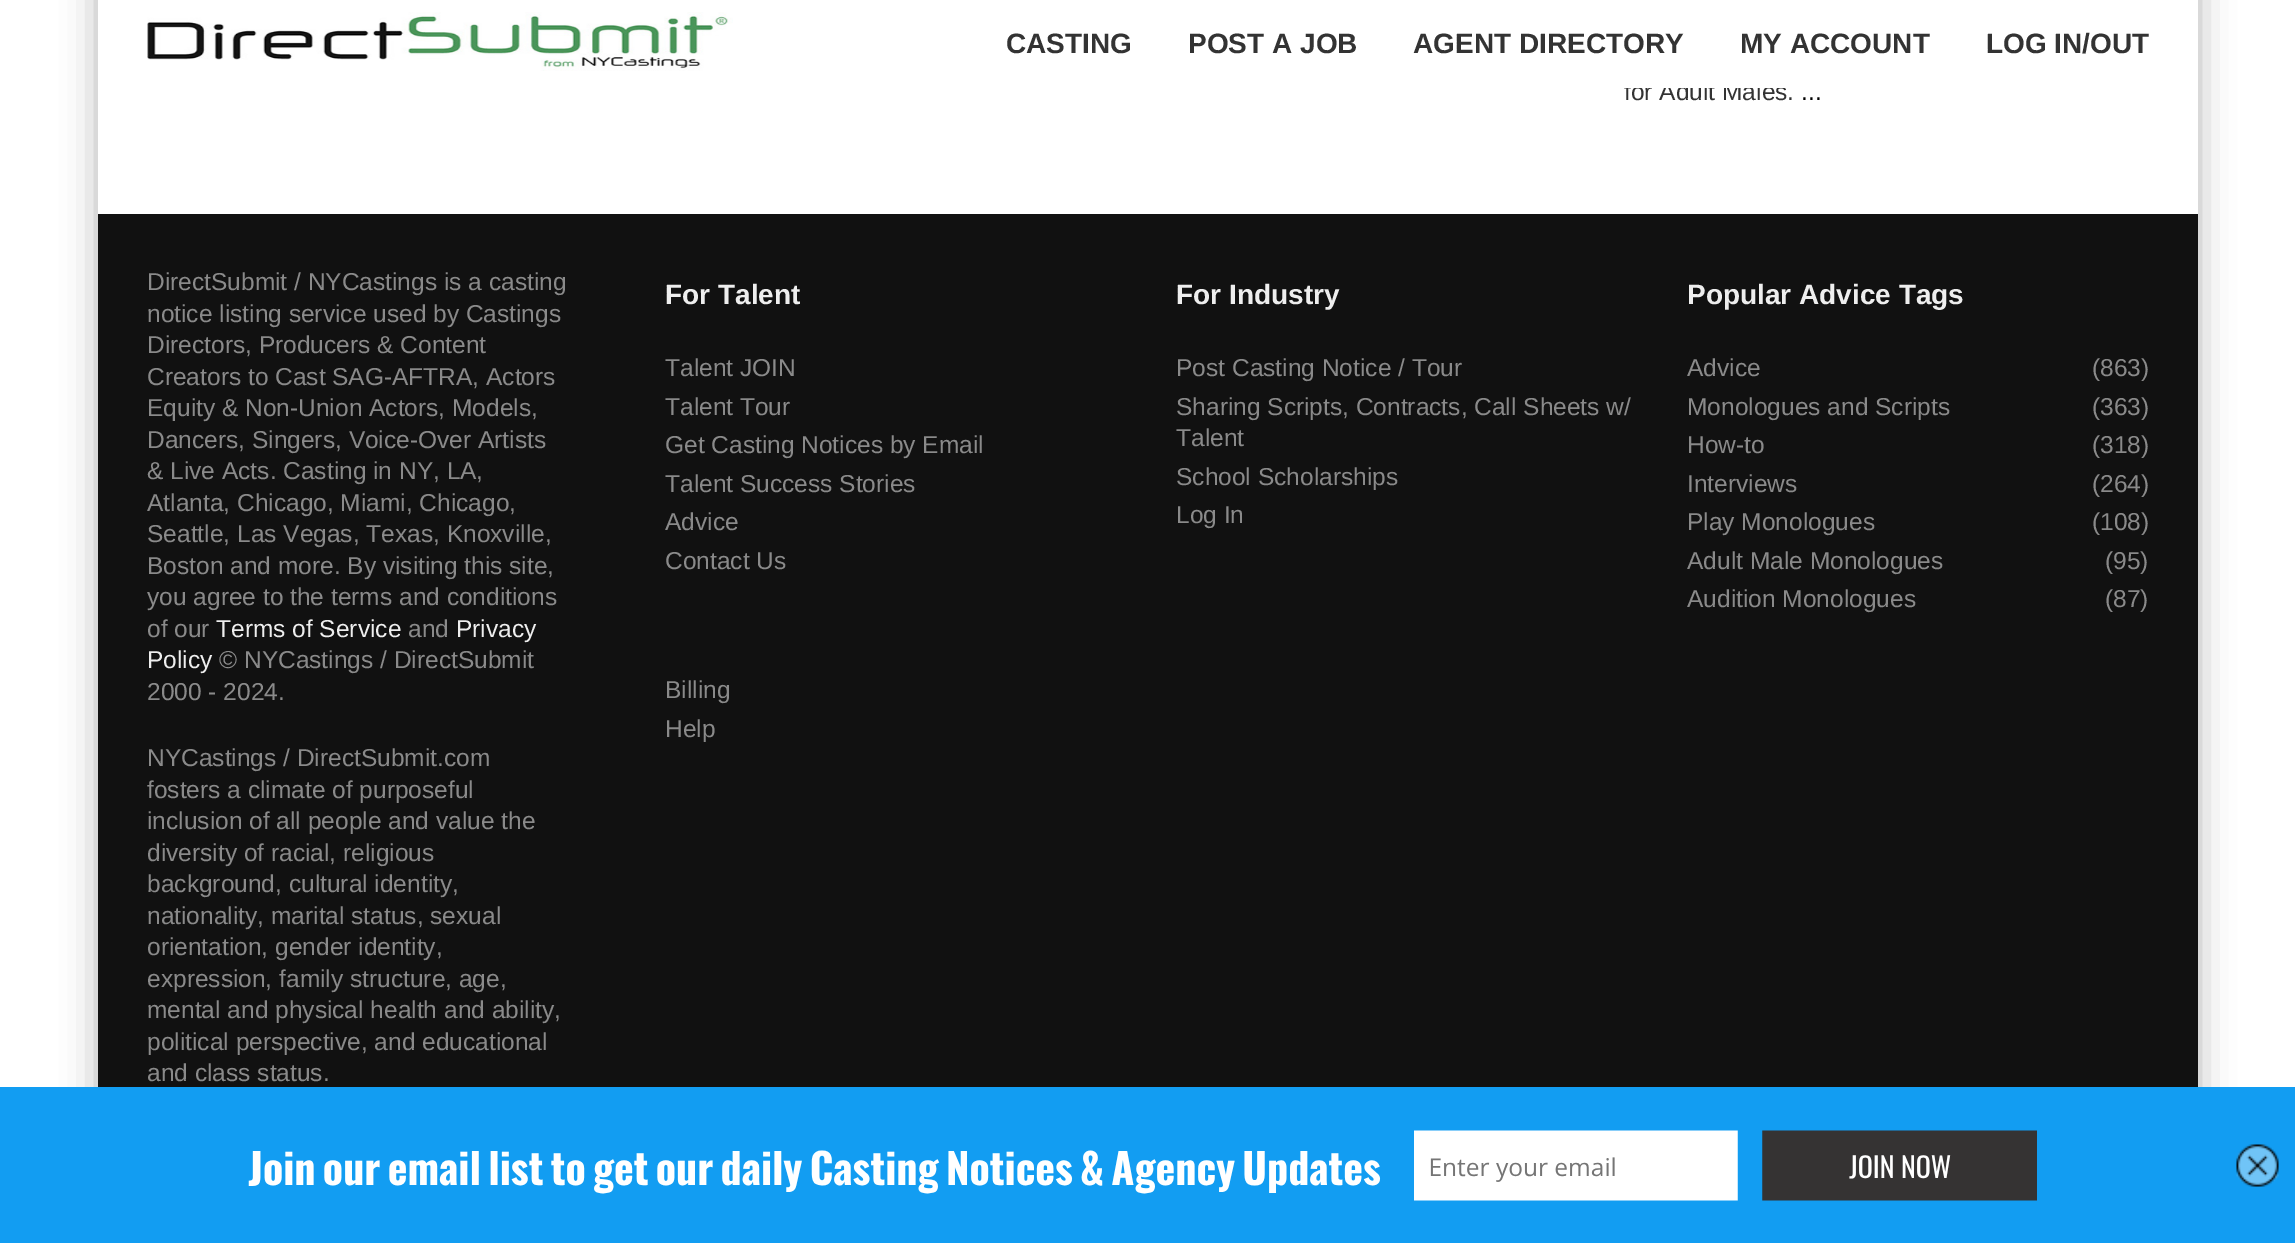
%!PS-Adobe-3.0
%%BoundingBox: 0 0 2295 1243
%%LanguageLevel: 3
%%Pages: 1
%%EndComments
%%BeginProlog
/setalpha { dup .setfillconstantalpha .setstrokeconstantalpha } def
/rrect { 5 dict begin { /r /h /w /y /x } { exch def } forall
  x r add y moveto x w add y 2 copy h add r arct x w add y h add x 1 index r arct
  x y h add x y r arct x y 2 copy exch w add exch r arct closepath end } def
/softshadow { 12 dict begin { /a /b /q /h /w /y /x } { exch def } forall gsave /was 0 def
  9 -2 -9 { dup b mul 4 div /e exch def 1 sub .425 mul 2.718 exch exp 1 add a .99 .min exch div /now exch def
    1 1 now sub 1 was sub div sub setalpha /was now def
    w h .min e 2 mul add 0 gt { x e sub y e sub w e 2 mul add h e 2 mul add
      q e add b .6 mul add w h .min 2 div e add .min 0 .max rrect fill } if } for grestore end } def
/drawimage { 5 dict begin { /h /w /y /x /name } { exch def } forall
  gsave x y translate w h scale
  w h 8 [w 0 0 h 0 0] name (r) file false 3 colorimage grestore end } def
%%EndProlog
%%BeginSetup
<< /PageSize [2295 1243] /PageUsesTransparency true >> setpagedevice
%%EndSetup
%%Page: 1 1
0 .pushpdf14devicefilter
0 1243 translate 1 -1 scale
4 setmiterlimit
1 setgray
0 0 2295 1243 rectfill
gsave
newpath 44 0 moveto 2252 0 lineto 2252 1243 lineto 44 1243 lineto closepath 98 -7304 moveto 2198 -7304 lineto 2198 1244 lineto 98 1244 lineto closepath eoclip newpath
0 setgray
98 -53 2100 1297 0 17.5 0.3 softshadow
grestore
(images/1.raw) 147 12 586 59 drawimage
0.067 setgray
98 214 2100 873 rectfill
(images/2.raw) 0 1087 2295 156 drawimage
/LiberationSans-Bold [28 0 0 -28 0 0] selectfont
0.2 setgray
1006 53 moveto (CASTING) show
1188 53 moveto (POST A JOB) show
1413 53 moveto (AGENT DIRECTORY) show
1740 53 moveto (MY ACCOUNT) show
1986 53 moveto (LOG IN/OUT) show
/LiberationSans-Regular [24.5 0 0 -24.5 0 0] selectfont
1624 100 moveto (for Adult Males.) show
1 setgray
1624 82 162 6 rectfill
0 setgray
1801 100 moveto (...) show
0.541 setgray
147 290 moveto (DirectSubmit / NYCastings is a casting) show
147 322 moveto (notice listing service used by Castings) show
147 353 moveto (Directors, Producers & Content) show
147 385 moveto (Creators to Cast SAG-AFTRA, Actors) show
147 416 moveto (Equity & Non-Union Actors, Models,) show
147 448 moveto (Dancers, Singers, Voice-Over Artists) show
147 479 moveto (& Live Acts. Casting in NY, LA,) show
147 511 moveto (Atlanta, Chicago, Miami, Chicago,) show
147 542 moveto (Seattle, Las Vegas, Texas, Knoxville,) show
147 574 moveto (Boston and more. By visiting this site,) show
147 605 moveto (you agree to the terms and conditions) show
147 637 moveto (of our) show
0.933 setgray
216 637 moveto (Terms of Service) show
0.541 setgray
408 637 moveto (and) show
0.933 setgray
456 637 moveto (Privacy) show
147 668 moveto (Policy) show
0.541 setgray
219 668 moveto (© NYCastings / DirectSubmit) show
147 700 moveto (2000 - 2024.) show
147 766 moveto (NYCastings / DirectSubmit.com) show
147 798 moveto (fosters a climate of purposeful) show
147 829 moveto (inclusion of all people and value the) show
147 861 moveto (diversity of racial, religious) show
147 892 moveto (background, cultural identity,) show
147 924 moveto (nationality, marital status, sexual) show
147 955 moveto (orientation, gender identity,) show
147 987 moveto (expression, family structure, age,) show
147 1018 moveto (mental and physical health and ability,) show
147 1050 moveto (political perspective, and educational) show
147 1081 moveto (and class status.) show
/LiberationSans-Bold [28 0 0 -28 0 0] selectfont
0.933 setgray
665 304 moveto (For Talent) show
/LiberationSans-Regular [24.5 0 0 -24.5 0 0] selectfont
0.541 setgray
665 376 moveto (Talent JOIN) show
665 415 moveto (Talent Tour) show
665 453 moveto (Get Casting Notices by Email) show
665 492 moveto (Talent Success Stories) show
665 530 moveto (Advice) show
665 569 moveto (Contact Us) show
/LiberationSans-Bold [28 0 0 -28 0 0] selectfont
0.933 setgray
1176 304 moveto (For Industry) show
/LiberationSans-Regular [24.5 0 0 -24.5 0 0] selectfont
0.541 setgray
1176 376 moveto (Post Casting Notice / Tour) show
1176 415 moveto (Sharing Scripts, Contracts, Call Sheets w/) show
1176 446 moveto (Talent) show
1176 485 moveto (School Scholarships) show
1176 523 moveto (Log In) show
/LiberationSans-Bold [28 0 0 -28 0 0] selectfont
0.933 setgray
1687 304 moveto (Popular Advice Tags) show
/LiberationSans-Regular [24.5 0 0 -24.5 0 0] selectfont
0.541 setgray
1687 376 moveto (Advice) show
2092 376 moveto (\(863\)) show
1687 415 moveto (Monologues and Scripts) show
2092 415 moveto (\(363\)) show
1687 453 moveto (How-to) show
2092 453 moveto (\(318\)) show
1687 492 moveto (Interviews) show
2092 492 moveto (\(264\)) show
1687 530 moveto (Play Monologues) show
2092 530 moveto (\(108\)) show
1687 569 moveto (Adult Male Monologues) show
2105 569 moveto (\(95\)) show
1687 607 moveto (Audition Monologues) show
2105 607 moveto (\(87\)) show
665 698 moveto (Billing) show
665 737 moveto (Help) show
.poppdf14devicefilter showpage
%%EOF
